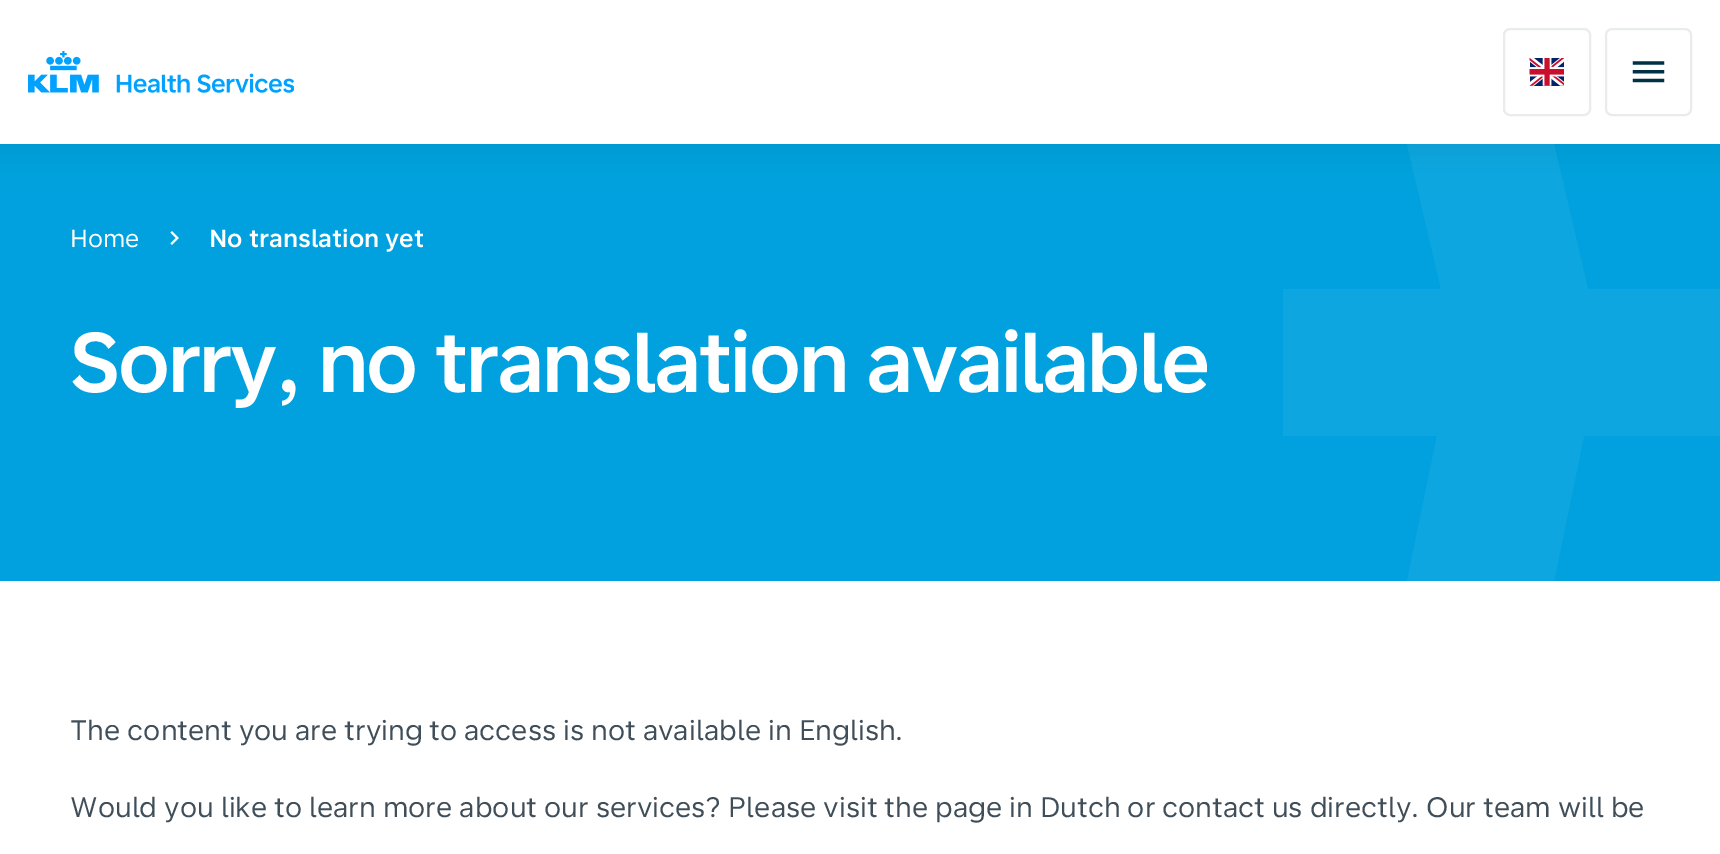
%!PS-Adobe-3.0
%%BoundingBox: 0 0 1720 854
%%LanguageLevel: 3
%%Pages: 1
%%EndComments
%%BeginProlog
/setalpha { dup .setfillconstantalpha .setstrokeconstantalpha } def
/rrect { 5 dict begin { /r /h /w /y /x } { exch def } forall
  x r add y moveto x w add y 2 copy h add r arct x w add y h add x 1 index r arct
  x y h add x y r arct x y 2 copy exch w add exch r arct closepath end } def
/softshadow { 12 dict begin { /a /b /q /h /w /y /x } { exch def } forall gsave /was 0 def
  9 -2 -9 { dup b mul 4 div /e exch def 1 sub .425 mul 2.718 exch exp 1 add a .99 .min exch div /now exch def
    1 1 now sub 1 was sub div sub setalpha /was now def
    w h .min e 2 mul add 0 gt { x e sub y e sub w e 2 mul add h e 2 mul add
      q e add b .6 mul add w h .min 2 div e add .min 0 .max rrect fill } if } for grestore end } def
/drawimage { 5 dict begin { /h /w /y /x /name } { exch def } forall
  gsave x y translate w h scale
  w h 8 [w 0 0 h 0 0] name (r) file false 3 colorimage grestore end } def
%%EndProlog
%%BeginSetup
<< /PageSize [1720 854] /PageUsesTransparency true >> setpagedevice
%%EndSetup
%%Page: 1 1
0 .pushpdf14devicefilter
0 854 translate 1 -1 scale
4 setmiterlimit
1 setgray
0 0 1720 854 rectfill
0 0.631 0.871 setrgbcolor
0 144 1720 437 rectfill
0.051 0.651 0.878 setrgbcolor
newpath 1408 144 moveto 1407 144 lineto 1441 289 lineto 1283 289 lineto 1283 436 lineto 1437 436 lineto 1407 581 lineto 1554 581 lineto 1584 436 lineto 1720 436 lineto 1720 289 lineto 1588 289 lineto 1554 144 lineto closepath fill
0 0.192 0.271 setrgbcolor
-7 -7 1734 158 0 17.5 0.1 softshadow
1 setgray
0 0 1720 144 rectfill
(images/1.raw) 28 51 266 42 drawimage
0.918 0.922 0.925 setrgbcolor
2 setlinewidth
1504 29 86 86 6 rrect stroke
(images/2.raw) 1529 58 35 28 drawimage
1606 29 85 86 6 rrect stroke
(images/3.raw) 1632 61 33 22 drawimage
(images/4.raw) 170 231 9 14 drawimage
/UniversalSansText-Regular [24.5 0 0 -24.5 0 0] selectfont
1 setgray
70 247 moveto (Home) show
/UniversalSansText-Bold [24.5 0 0 -24.5 0 0] selectfont
209 247 moveto (No translation yet) show
/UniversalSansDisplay-Bold [84 0 0 -84 0 0] selectfont
70 392 moveto (Sorry, no translation available) show
/UniversalSansText-Regular [28 0 0 -28 0 0] selectfont
0.247 0.306 0.345 setrgbcolor
70 740 moveto (The content you are trying to access is not available in English.) show
70 817 moveto (Would you like to learn more about our services? Please visit the page in Dutch or contact us directly. Our team will be) show
.poppdf14devicefilter showpage
%%EOF
